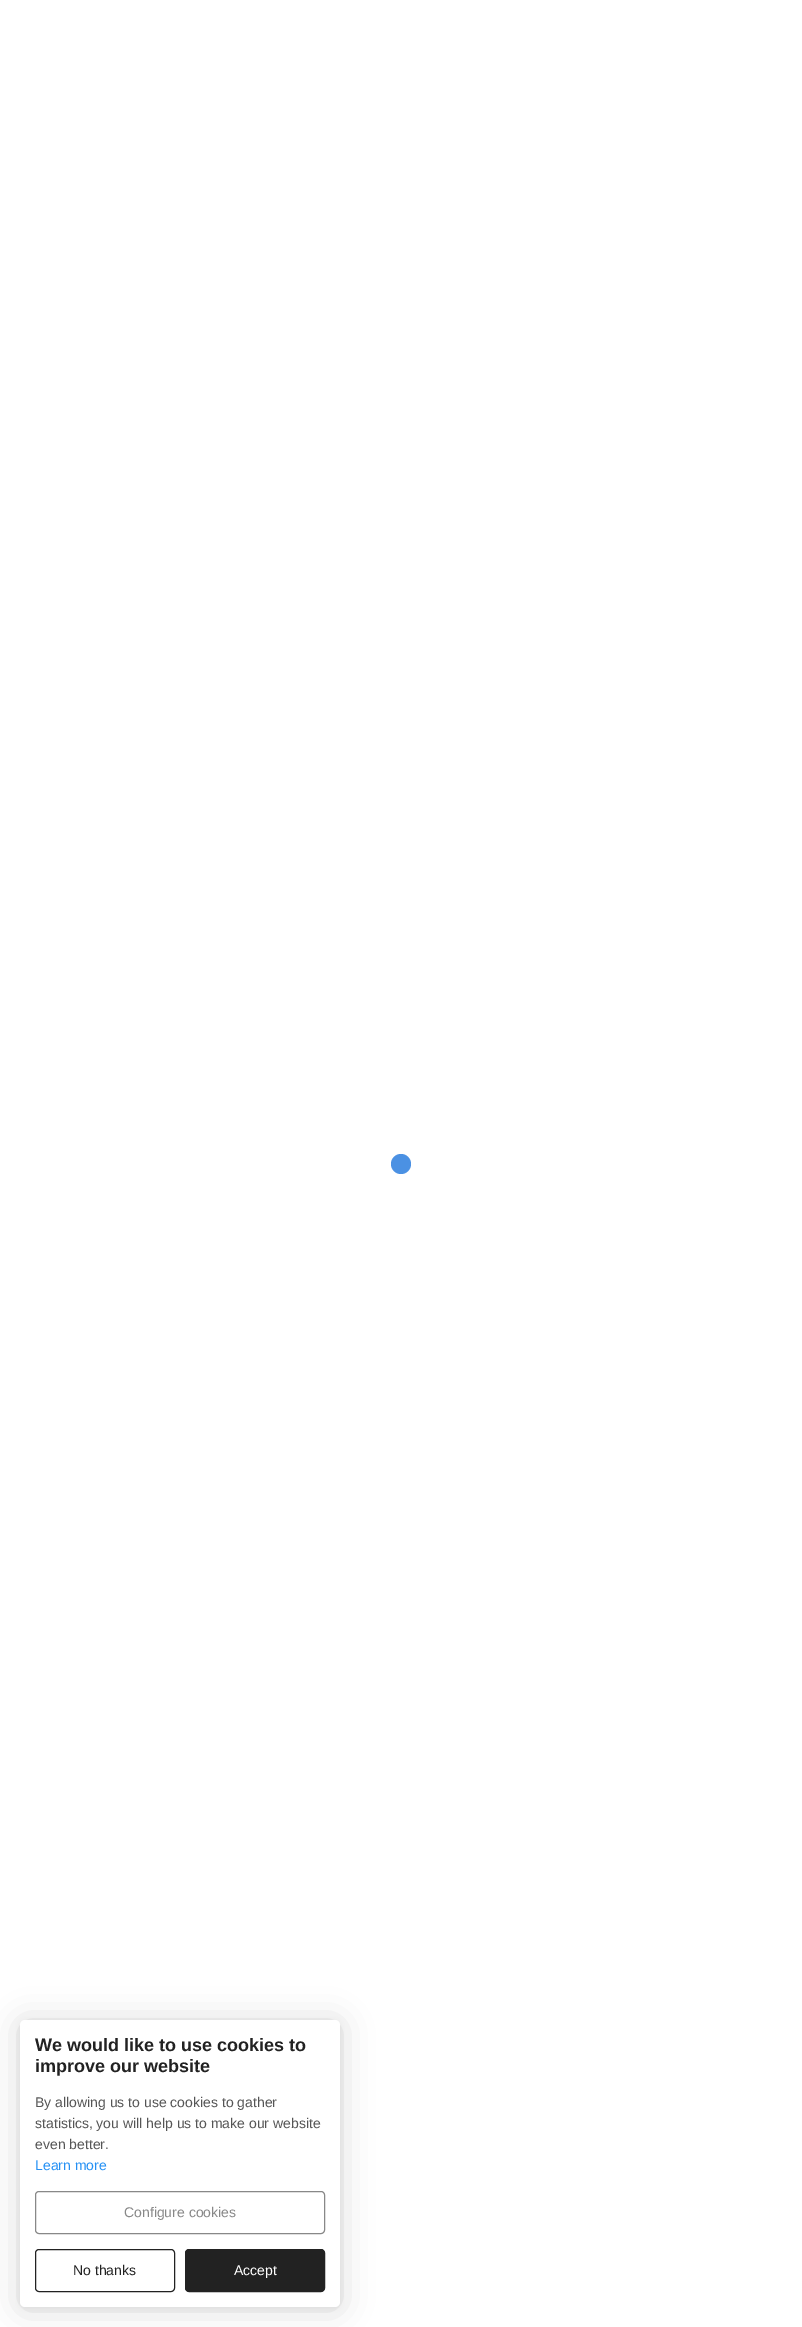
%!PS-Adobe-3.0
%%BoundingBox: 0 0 802 2327
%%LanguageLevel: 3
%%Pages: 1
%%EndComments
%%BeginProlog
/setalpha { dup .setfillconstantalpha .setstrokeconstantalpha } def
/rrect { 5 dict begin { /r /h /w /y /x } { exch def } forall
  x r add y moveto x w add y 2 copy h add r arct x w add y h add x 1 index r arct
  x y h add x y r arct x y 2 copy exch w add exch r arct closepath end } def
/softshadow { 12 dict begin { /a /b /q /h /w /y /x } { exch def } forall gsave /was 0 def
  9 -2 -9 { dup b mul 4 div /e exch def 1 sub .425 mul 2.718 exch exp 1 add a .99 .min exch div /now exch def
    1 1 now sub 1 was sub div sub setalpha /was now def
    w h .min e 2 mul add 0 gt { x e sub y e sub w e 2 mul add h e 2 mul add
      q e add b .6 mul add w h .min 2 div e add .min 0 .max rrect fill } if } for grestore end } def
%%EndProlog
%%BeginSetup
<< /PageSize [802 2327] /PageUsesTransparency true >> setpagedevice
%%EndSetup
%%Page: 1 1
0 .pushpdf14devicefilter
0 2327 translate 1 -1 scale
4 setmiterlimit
1 setgray
0 0 802 2327 rectfill
0.294 0.569 0.89 setrgbcolor
newpath 401 1164 10 0 360 arc closepath fill
0 setgray
20 2022 320 287 5 16 0.16 softshadow
20 2021 320 287 5 3 0.06 softshadow
1 setgray
20 2020 320 287 5 rrect fill
0.533 setgray
35.5 2191.5 289 42 3.5 rrect stroke
0.133 setgray
35.5 2249.5 139 42 3.5 rrect stroke
185.5 2249.5 139 42 3.5 rrect gsave fill grestore
stroke
/LiberationSans-Bold [18 0 0 -18 0 0] selectfont
35 2051 moveto (We would like to use cookies to) show
35 2072 moveto (improve our website) show
/LiberationSans-Regular [14 0 0 -14 0 0] selectfont
0.333 setgray
35 2107 moveto (By allowing us to use cookies to gather) show
35 2128 moveto (statistics, you will help us to make our website) show
35 2149 moveto (even better.) show
0.141 0.565 0.957 setrgbcolor
35 2170 moveto (Learn more) show
0.533 setgray
124 2217 moveto (Configure cookies) show
0.133 setgray
73 2275 moveto (No thanks) show
1 setgray
234 2275 moveto (Accept) show
.poppdf14devicefilter showpage
%%EOF
